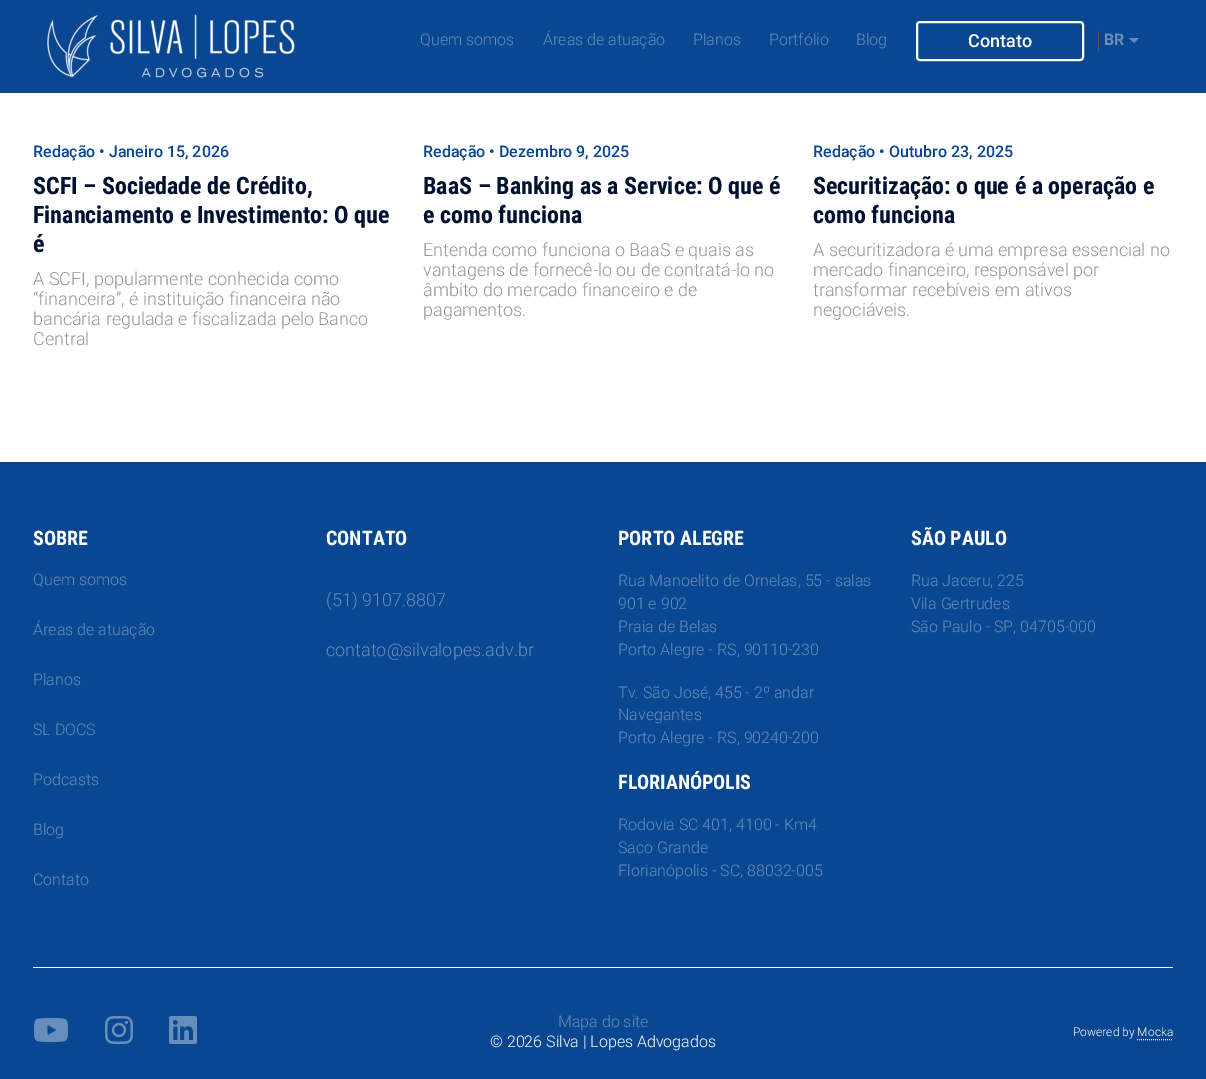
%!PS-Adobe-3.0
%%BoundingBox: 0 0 1206 1079
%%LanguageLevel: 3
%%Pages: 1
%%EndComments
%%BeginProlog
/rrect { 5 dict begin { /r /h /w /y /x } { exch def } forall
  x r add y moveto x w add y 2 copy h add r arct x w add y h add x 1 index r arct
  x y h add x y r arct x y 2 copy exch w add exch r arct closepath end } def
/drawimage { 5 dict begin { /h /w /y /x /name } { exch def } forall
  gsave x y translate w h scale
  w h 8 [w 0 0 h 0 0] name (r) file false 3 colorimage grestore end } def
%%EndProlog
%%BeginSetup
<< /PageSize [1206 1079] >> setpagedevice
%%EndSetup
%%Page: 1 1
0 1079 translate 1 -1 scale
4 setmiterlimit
1 setgray
0 0 1206 1079 rectfill
0.039 0.278 0.573 setrgbcolor
0 0 1206 93 rectfill
(images/1.raw) 47 14 248 64 drawimage
1 setgray
2 setlinewidth
917 22 166 38 3 rrect stroke
0.333 0.337 0.353 setrgbcolor
1098 31 1 20 rectfill
0.404 0.553 0.733 setrgbcolor
newpath 1129 38 moveto 1139 38 lineto 1134 43 lineto closepath fill
0.039 0.278 0.573 setrgbcolor
0 462 1206 617 rectfill
1 setgray
33 967 1140 1 rectfill
(images/2.raw) 34 1018 34 24 drawimage
(images/3.raw) 105 1016 28 28 drawimage
(images/4.raw) 169 1016 28 28 drawimage
1 setlinewidth
[1 1] 0 setdash
newpath 1137 1039.5 moveto 1173 1039.5 lineto stroke
/Roboto-Light [16 0 0 -16 0 0] selectfont
0.404 0.553 0.733 setrgbcolor
420 45 moveto (Quem somos) show
543 45 moveto (Áreas de atuação) show
693 45 moveto (Planos) show
769 45 moveto (Portfólio) show
856 45 moveto (Blog) show
/Roboto-Medium [18 0 0 -18 0 0] selectfont
1 setgray
968 47 moveto (Contato) show
/Roboto-Bold [16 0 0 -16 0 0] selectfont
0.404 0.553 0.733 setrgbcolor
1104 45 moveto (BR) show
/Roboto-Medium [16 0 0 -16 0 0] selectfont
0.039 0.278 0.573 setrgbcolor
33 157 moveto (Redação • Janeiro 15, 2026) show
/RobotoCondensed-Bold [24 0 0 -24 0 0] selectfont
0 0.063 0.188 setrgbcolor
33 194 moveto (SCFI – Sociedade de Crédito,) show
33 223 moveto (Financiamento e Investimento: O que) show
33 252 moveto (é) show
/Roboto-Light [18 0 0 -18 0 0] selectfont
0.588 setgray
33 285 moveto (A SCFI, popularmente conhecida como) show
33 305 moveto (“financeira”, é instituição financeira não) show
33 325 moveto (bancária regulada e fiscalizada pelo Banco) show
33 345 moveto (Central) show
/Roboto-Medium [16 0 0 -16 0 0] selectfont
0.039 0.278 0.573 setrgbcolor
423 157 moveto (Redação • Dezembro 9, 2025) show
/RobotoCondensed-Bold [24 0 0 -24 0 0] selectfont
0 0.063 0.188 setrgbcolor
423 194 moveto (BaaS – Banking as a Service: O que é) show
423 223 moveto (e como funciona) show
/Roboto-Light [18 0 0 -18 0 0] selectfont
0.588 setgray
423 256 moveto (Entenda como funciona o BaaS e quais as) show
423 276 moveto (vantagens de fornecê-lo ou de contratá-lo no) show
423 296 moveto (âmbito do mercado financeiro e de) show
423 316 moveto (pagamentos.) show
/Roboto-Medium [16 0 0 -16 0 0] selectfont
0.039 0.278 0.573 setrgbcolor
813 157 moveto (Redação • Outubro 23, 2025) show
/RobotoCondensed-Bold [24 0 0 -24 0 0] selectfont
0 0.063 0.188 setrgbcolor
813 194 moveto (Securitização: o que é a operação e) show
813 223 moveto (como funciona) show
/Roboto-Light [18 0 0 -18 0 0] selectfont
0.588 setgray
813 256 moveto (A securitizadora é uma empresa essencial no) show
813 276 moveto (mercado financeiro, responsável por) show
813 296 moveto (transformar recebíveis em ativos) show
813 316 moveto (negociáveis.) show
/RobotoCondensed-Bold [20 0 0 -20 0 0] selectfont
1 setgray
33 545 moveto (SOBRE) show
/Roboto-Light [16 0 0 -16 0 0] selectfont
0.404 0.553 0.733 setrgbcolor
33 585 moveto (Quem somos) show
33 635 moveto (Áreas de atuação) show
33 685 moveto (Planos) show
33 735 moveto (SL DOCS) show
33 785 moveto (Podcasts) show
33 835 moveto (Blog) show
33 885 moveto (Contato) show
/RobotoCondensed-Bold [20 0 0 -20 0 0] selectfont
1 setgray
326 545 moveto (CONTATO) show
/Roboto-Light [18 0 0 -18 0 0] selectfont
0.404 0.553 0.733 setrgbcolor
326 606 moveto (\(51\) 9107.8807) show
326 656 moveto (contato@silvalopes.adv.br) show
/RobotoCondensed-Bold [20 0 0 -20 0 0] selectfont
1 setgray
618 545 moveto (PORTO ALEGRE) show
/Roboto-Light [16 0 0 -16 0 0] selectfont
0.404 0.553 0.733 setrgbcolor
618 586 moveto (Rua Manoelito de Ornelas, 55 - salas) show
618 609 moveto (901 e 902) show
618 632 moveto (Praia de Belas) show
618 655 moveto (Porto Alegre - RS, 90110-230) show
618 698 moveto (Tv. São José, 455 - 2º andar) show
618 720 moveto (Navegantes) show
618 743 moveto (Porto Alegre - RS, 90240-200) show
/RobotoCondensed-Bold [20 0 0 -20 0 0] selectfont
1 setgray
618 789 moveto (FLORIANÓPOLIS) show
/Roboto-Light [16 0 0 -16 0 0] selectfont
0.404 0.553 0.733 setrgbcolor
618 830 moveto (Rodovia SC 401, 4100 - Km4) show
618 853 moveto (Saco Grande) show
618 876 moveto (Florianópolis - SC, 88032-005) show
/RobotoCondensed-Bold [20 0 0 -20 0 0] selectfont
1 setgray
911 545 moveto (SÃO PAULO) show
/Roboto-Light [16 0 0 -16 0 0] selectfont
0.404 0.553 0.733 setrgbcolor
911 586 moveto (Rua Jaceru, 225) show
911 609 moveto (Vila Gertrudes) show
911 632 moveto (São Paulo - SP, 04705-000) show
558 1027 moveto (Mapa do site) show
1 setgray
490 1047 moveto (© 2026 Silva | Lopes Advogados) show
/Roboto-Light [12 0 0 -12 0 0] selectfont
1073 1036 moveto (Powered by Mocka) show
showpage
%%EOF
